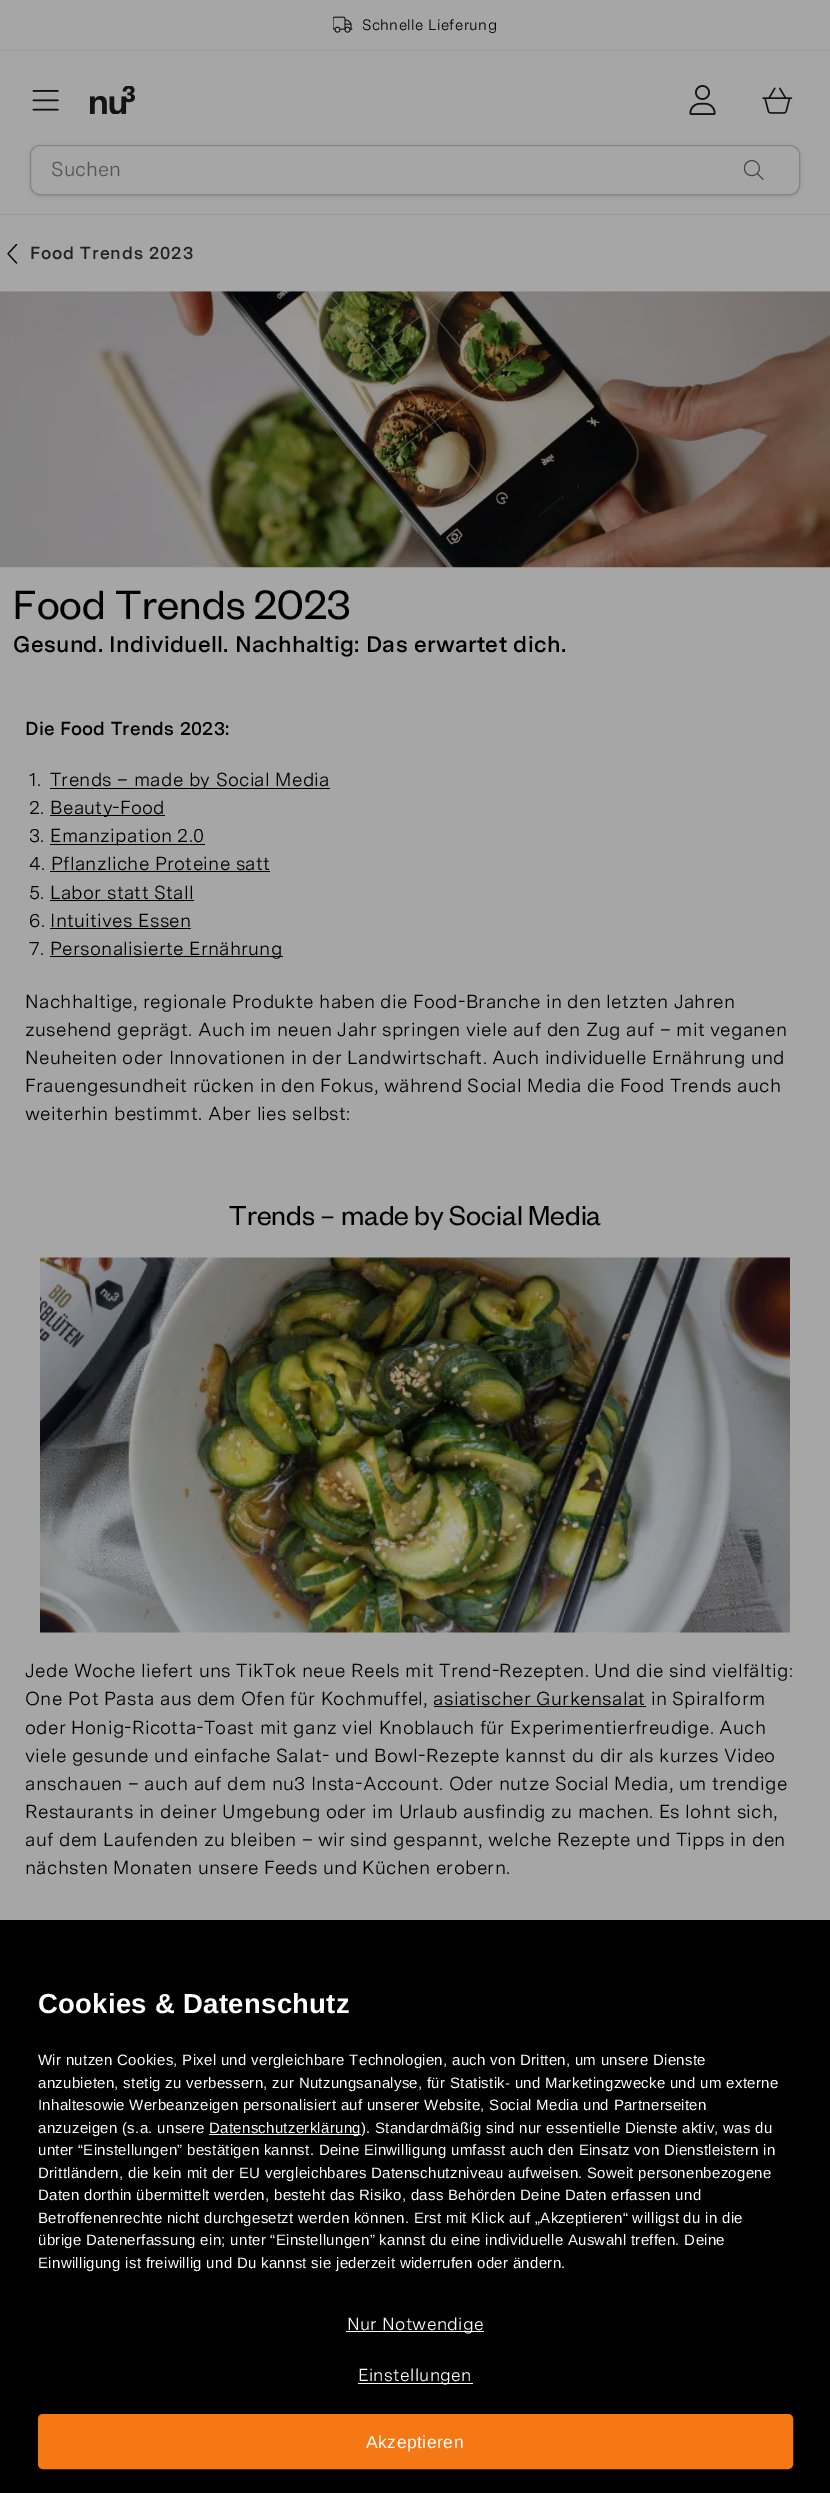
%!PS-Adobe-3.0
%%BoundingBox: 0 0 830 2493
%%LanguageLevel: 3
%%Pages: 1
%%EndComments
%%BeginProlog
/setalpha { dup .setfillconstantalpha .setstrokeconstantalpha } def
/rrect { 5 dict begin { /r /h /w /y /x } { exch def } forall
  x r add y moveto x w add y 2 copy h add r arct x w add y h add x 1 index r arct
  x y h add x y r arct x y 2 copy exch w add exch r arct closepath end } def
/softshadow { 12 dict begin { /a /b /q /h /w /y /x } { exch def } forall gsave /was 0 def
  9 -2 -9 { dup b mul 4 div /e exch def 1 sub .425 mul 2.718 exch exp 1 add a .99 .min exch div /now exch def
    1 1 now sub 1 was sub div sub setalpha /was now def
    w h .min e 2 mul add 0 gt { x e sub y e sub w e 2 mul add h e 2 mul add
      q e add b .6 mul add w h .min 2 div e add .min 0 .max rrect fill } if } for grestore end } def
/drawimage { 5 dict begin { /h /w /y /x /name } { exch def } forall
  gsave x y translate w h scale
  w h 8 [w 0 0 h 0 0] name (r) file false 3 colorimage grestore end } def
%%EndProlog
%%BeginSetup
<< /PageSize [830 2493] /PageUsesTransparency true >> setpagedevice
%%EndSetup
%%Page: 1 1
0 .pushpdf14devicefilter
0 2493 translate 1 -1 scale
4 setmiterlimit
0.651 setgray
0 0 830 2493 rectfill
0.624 0.624 0.62 setrgbcolor
0 50 830 1 rectfill
0.631 0.631 0.624 setrgbcolor
0 49 830 1 rectfill
(images/1.raw) 333 16 20 17 drawimage
0.6 setgray
0 214 830 1 rectfill
(images/2.raw) 32 90 27 21 drawimage
(images/3.raw) 90 86 45 28 drawimage
(images/4.raw) 689 85 27 30 drawimage
(images/5.raw) 762 87 31 27 drawimage
0 setgray
31 148 768 47 9 1 0.1 softshadow
30 146 770 50 10 2 0.1 softshadow
0.651 setgray
30.5 145.5 769 49 9.5 rrect gsave fill grestore
0.522 setgray
stroke
(images/6.raw) 744 160 20 20 drawimage
(images/7.raw) 7 244 11 20 drawimage
(images/8.raw) 0 291 830 277 drawimage
0 setgray
50 788 280 1 rectfill
50 815 115 1 rectfill
50 844 155 1 rectfill
50 871 220 1 rectfill
50 900 144 1 rectfill
50 928 141 1 rectfill
50 956 233 1 rectfill
(images/9.raw) 40 1257 750 376 drawimage
434 1706 212 1 rectfill
0 1920 830 573 rectfill
1 setgray
209 2134 152 1 rectfill
346 2331 138 1 rectfill
358 2383 115 1 rectfill
0.961 0.471 0.078 setrgbcolor
39.5 2415.5 752 52 3.5 rrect gsave fill grestore
3 setlinewidth
stroke
/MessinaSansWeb-Regular [15 0 0 -15 0 0] selectfont
0 setgray
362 30 moveto 0.3 0 (Schnelle Lieferung) ashow
/MessinaSansWeb-Regular [20 0 0 -20 0 0] selectfont
0.333 0.333 0.325 setrgbcolor
51 176 moveto (Suchen) show
/MessinaSansWeb-SemiBold [17.5 0 0 -17.5 0 0] selectfont
0.129 setgray
30 259 moveto 0.9 0 (Food Trends 2023) ashow
/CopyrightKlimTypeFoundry-Regular [45 0 0 -45 0 0] selectfont
0 setgray
13 619 moveto 0.3 0 (Food Trends 2023) ashow
/MessinaSansWeb-SemiBold [22.5 0 0 -22.5 0 0] selectfont
13 652 moveto 0.3 0 (Gesund. Individuell. Nachhaltig: Das erwartet dich.) ashow
/MessinaSansWeb-SemiBold [18.75 0 0 -18.75 0 0] selectfont
25 735 moveto 0.3 0 (Die Food Trends 2023:) ashow
/MessinaSansWeb-Regular [18.75 0 0 -18.75 0 0] selectfont
29 786 moveto 0.3 0 (1.) ashow
50 786 moveto 0.3 0 (Trends – made by Social Media) ashow
29 814 moveto 0.3 0 (2.) ashow
50 814 moveto 0.3 0 (Beauty-Food) ashow
29 842 moveto 0.3 0 (3.) ashow
50 842 moveto 0.3 0 (Emanzipation 2.0) ashow
29 870 moveto 0.3 0 (4. Pflanzliche Proteine satt) ashow
29 899 moveto 0.3 0 (5. Labor statt Stall) ashow
29 927 moveto 0.3 0 (6. Intuitives Essen) ashow
29 955 moveto 0.3 0 (7.) ashow
50 955 moveto 0.3 0 (Personalisierte Ernährung) ashow
25 1008 moveto 0.3 0 (Nachhaltige, regionale Produkte haben die Food-Branche in den letzten Jahren) ashow
25 1036 moveto 0.3 0 (zusehend geprägt. Auch im neuen Jahr springen viele auf den Zug auf – mit veganen) ashow
25 1064 moveto 0.3 0 (Neuheiten oder Innovationen in der Landwirtschaft. Auch individuelle Ernährung und) ashow
25 1092 moveto 0.3 0 (Frauengesundheit rücken in den Fokus, während Social Media die Food Trends auch) ashow
25 1120 moveto 0.3 0 (weiterhin bestimmt. Aber lies selbst:) ashow
/CopyrightKlimTypeFoundry-Regular [30 0 0 -30 0 0] selectfont
229 1225 moveto (Trends – made by Social Media) show
/MessinaSansWeb-Regular [18.75 0 0 -18.75 0 0] selectfont
25 1677 moveto 0.3 0 (Jede Woche liefert uns TikTok neue Reels mit Trend-Rezepten. Und die sind vielfältig:) ashow
25 1705 moveto 0.3 0 (One Pot Pasta aus dem Ofen für Kochmuffel, asiatischer Gurkensalat in Spiralform) ashow
25 1734 moveto 0.3 0 (oder Honig-Ricotta-Toast mit ganz viel Knoblauch für Experimentierfreudige. Auch) ashow
25 1762 moveto 0.3 0 (viele gesunde und einfache Salat- und Bowl-Rezepte kannst du dir als kurzes Video) ashow
25 1790 moveto 0.3 0 (anschauen – auch auf dem nu3 Insta-Account. Oder nutze Social Media, um trendige) ashow
25 1818 moveto 0.3 0 (Restaurants in deiner Umgebung oder im Urlaub ausfindig zu machen. Es lohnt sich,) ashow
25 1846 moveto 0.3 0 (auf dem Laufenden zu bleiben – wir sind gespannt, welche Rezepte und Tipps in den) ashow
25 1874 moveto 0.3 0 (nächsten Monaten unsere Feeds und Küchen erobern.) ashow
/LiberationSans-Bold [27.5 0 0 -27.5 0 0] selectfont
1 setgray
38 2013 moveto 0.3 0 (Cookies & Datenschutz) ashow
/LiberationSans-Regular [15 0 0 -15 0 0] selectfont
38 2065 moveto 0.3 0 (Wir nutzen Cookies, Pixel und vergleichbare Technologien, auch von Dritten, um unsere Dienste) ashow
38 2088 moveto 0.3 0 (anzubieten, stetig zu verbessern, zur Nutzungsanalyse, für Statistik- und Marketingzwecke und um externe) ashow
38 2110 moveto 0.3 0 (Inhaltesowie Werbeanzeigen personalisiert auf unserer Website, Social Media und Partnerseiten) ashow
38 2133 moveto 0.3 0 (anzuzeigen \(s.a. unsere) ashow
209 2133 moveto 0.3 0 (Datenschutzerklärung\). Standardmäßig sind nur essentielle Dienste aktiv, was du) ashow
38 2155 moveto 0.3 0 (unter “Einstellungen” bestätigen kannst. Deine Einwilligung umfasst auch den Einsatz von Dienstleistern in) ashow
38 2178 moveto 0.3 0 (Drittländern, die kein mit der EU vergleichbares Datenschutzniveau aufweisen. Soweit personenbezogene) ashow
38 2200 moveto 0.3 0 (Daten dorthin übermittelt werden, besteht das Risiko, dass Behörden Deine Daten erfassen und) ashow
38 2223 moveto 0.3 0 (Betroffenenrechte nicht durchgesetzt werden können. Erst mit Klick auf „Akzeptieren“ willigst du in die) ashow
38 2245 moveto 0.3 0 (übrige Datenerfassung ein; unter “Einstellungen” kannst du eine individuelle Auswahl treffen. Deine) ashow
38 2268 moveto 0.3 0 (Einwilligung ist freiwillig und Du kannst sie jederzeit widerrufen oder ändern.) ashow
/MessinaSansWeb-Regular [17.5 0 0 -17.5 0 0] selectfont
347 2330 moveto 0.3 0 (Nur Notwendige) ashow
358 2381 moveto 0.3 0 (Einstellungen) ashow
/LiberationSans-Regular [17.5 0 0 -17.5 0 0] selectfont
366 2448 moveto 0.5 0 (Akzeptieren) ashow
.poppdf14devicefilter showpage
%%EOF
